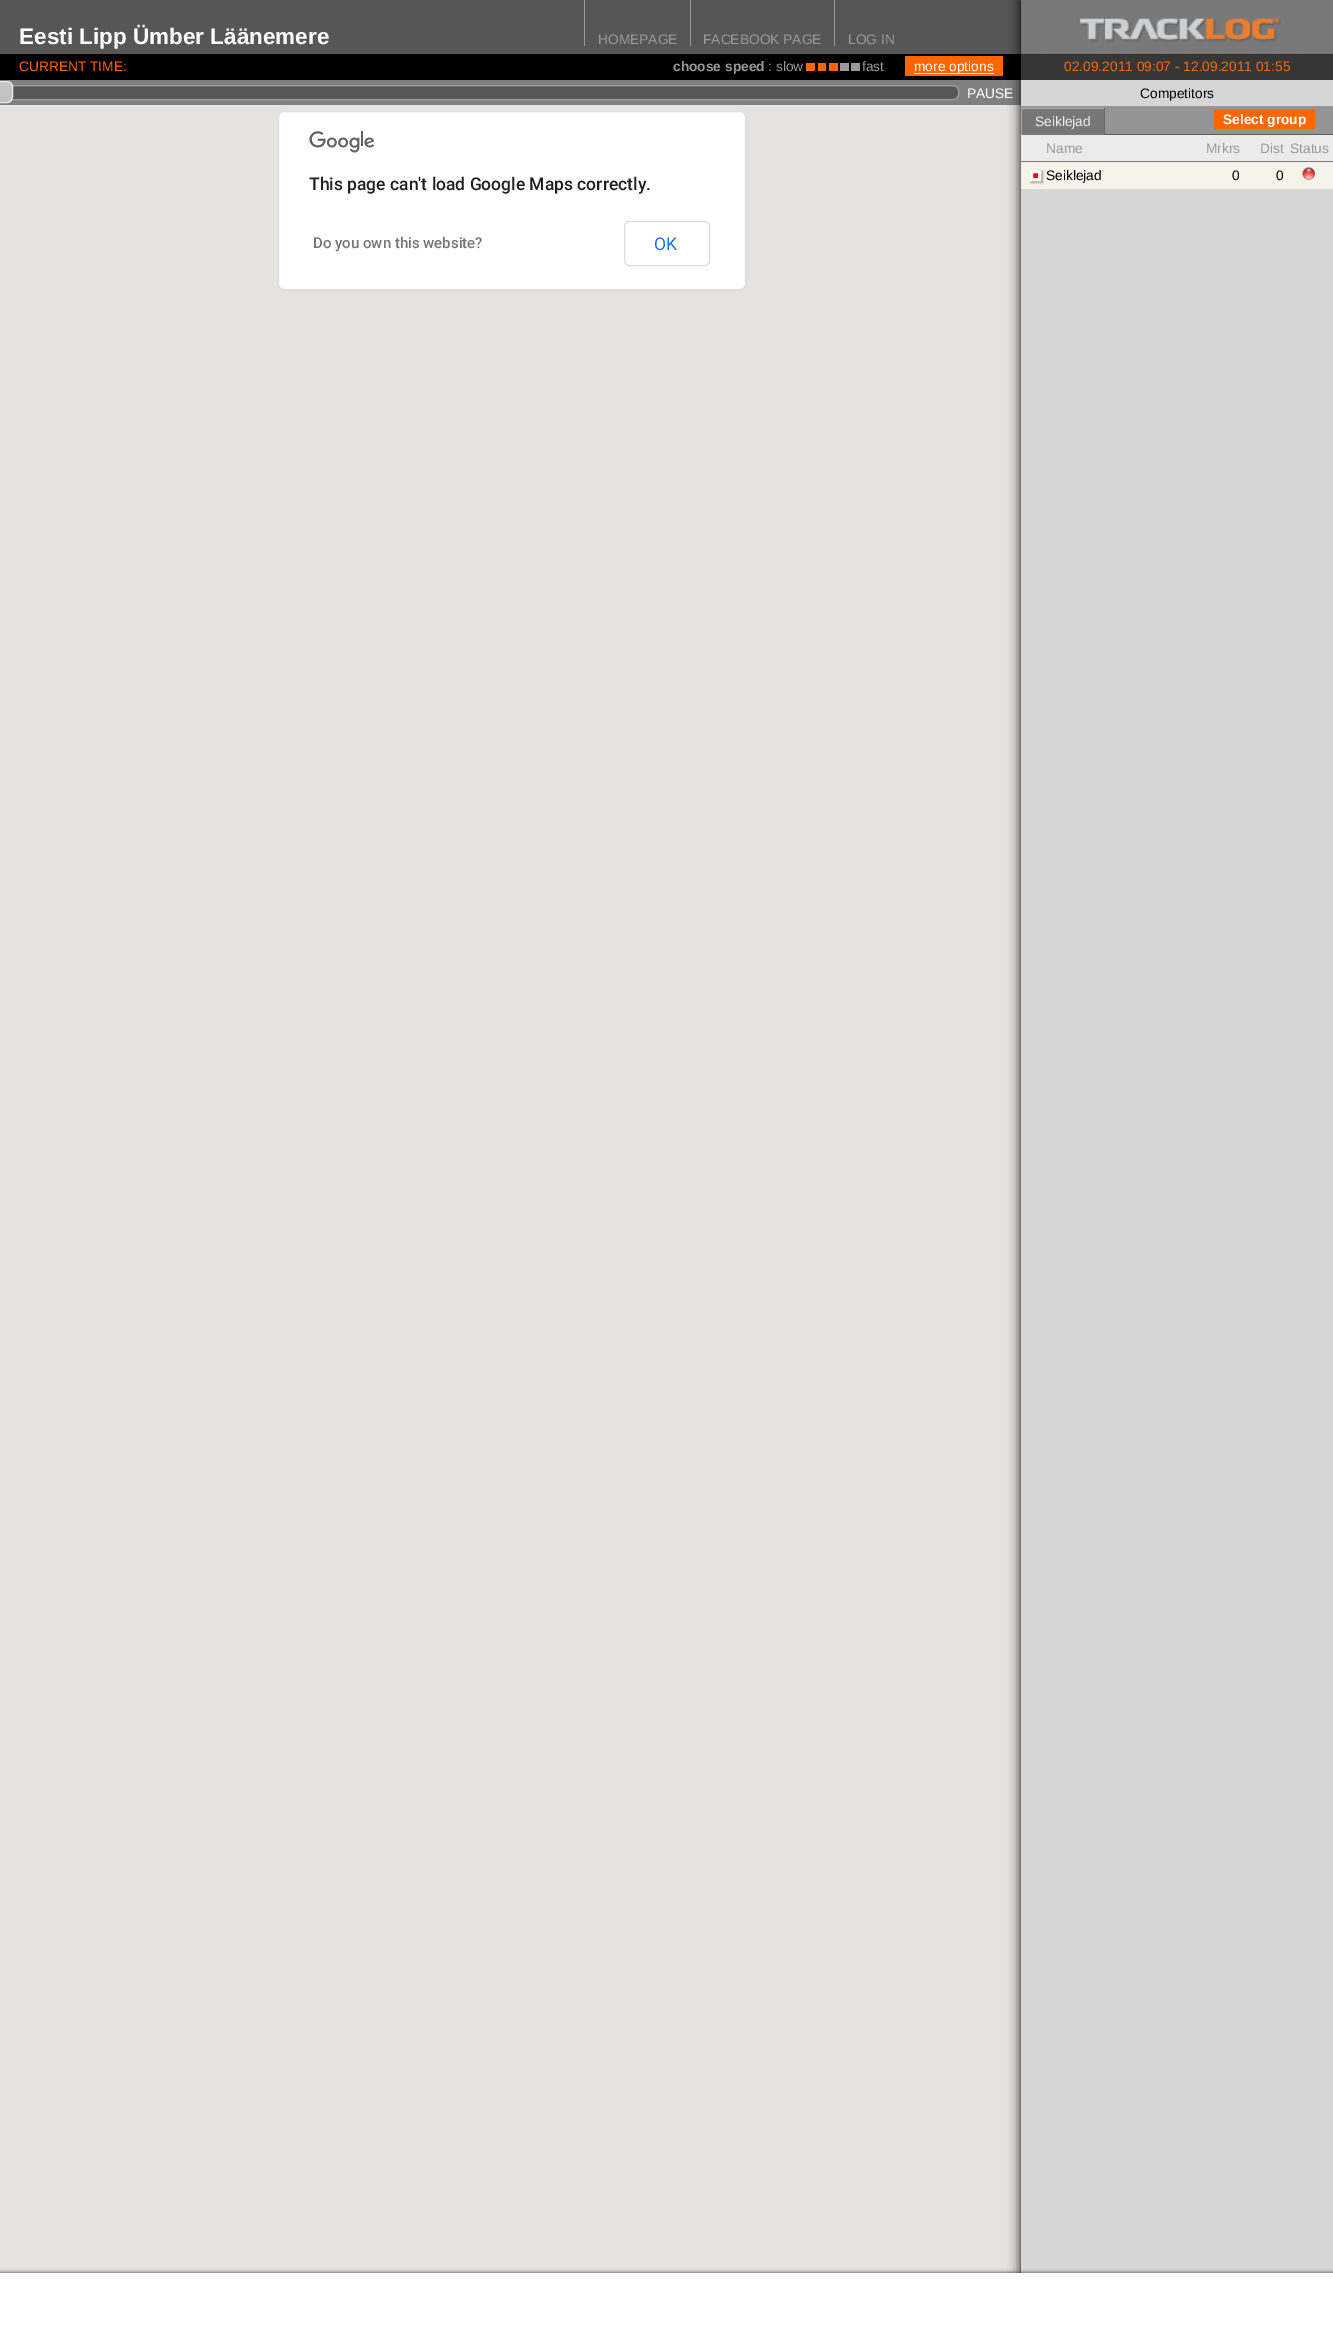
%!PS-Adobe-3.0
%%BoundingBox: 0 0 1333 2347
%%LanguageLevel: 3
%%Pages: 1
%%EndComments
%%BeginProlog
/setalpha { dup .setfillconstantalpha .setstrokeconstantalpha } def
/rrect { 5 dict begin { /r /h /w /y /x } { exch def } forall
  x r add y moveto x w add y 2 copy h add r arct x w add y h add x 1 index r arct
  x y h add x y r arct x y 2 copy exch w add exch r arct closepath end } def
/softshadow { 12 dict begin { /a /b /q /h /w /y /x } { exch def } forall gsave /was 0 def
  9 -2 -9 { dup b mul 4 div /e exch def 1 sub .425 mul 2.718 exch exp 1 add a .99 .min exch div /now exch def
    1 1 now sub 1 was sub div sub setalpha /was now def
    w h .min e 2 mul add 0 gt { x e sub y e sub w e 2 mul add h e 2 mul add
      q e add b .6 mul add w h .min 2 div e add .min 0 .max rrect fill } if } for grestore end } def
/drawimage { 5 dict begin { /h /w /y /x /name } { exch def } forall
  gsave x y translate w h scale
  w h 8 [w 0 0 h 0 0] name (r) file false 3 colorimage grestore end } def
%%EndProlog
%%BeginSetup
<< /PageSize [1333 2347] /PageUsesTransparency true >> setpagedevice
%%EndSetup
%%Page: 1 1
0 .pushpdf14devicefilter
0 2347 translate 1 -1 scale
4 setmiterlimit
0.337 setgray
0 0 1333 2347 rectfill
0.6 setgray
584 0 1 46 rectfill
690 0 1 46 rectfill
834 0 1 46 rectfill
0 setgray
0 54 1021 26 rectfill
1 0.4 0 setrgbcolor
806 63 9 8 rectfill
818 63 8 8 rectfill
829 63 9 8 rectfill
0.6 setgray
840 63 9 8 rectfill
851 63 9 8 rectfill
1 0.4 0 setrgbcolor
905 56 98 20 rectfill
1 setgray
914 73 80 1 rectfill
0.502 setgray
0 80 1021 25 rectfill
0.537 setgray
0 85 959 15 6 rrect fill
(images/1.raw) 12 86 947 14 drawimage
0.627 setgray
0.5 85.5 958 14 5.5 rrect stroke
0.839 setgray
-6 81 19 22 6 rrect fill
(images/2.raw) 0 81 13 22 drawimage
0.902 setgray
-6.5 81.5 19 21 5.5 rrect stroke
0.898 0.89 0.875 setrgbcolor
0 105 1021 2168 rectfill
1 setgray
278 111 468 179 6 rrect fill
0.12 setalpha
0 setgray
278.5 111.5 467 178 5.5 rrect stroke
1 setalpha
(images/3.raw) 309 131 65 22 drawimage
0.855 0.863 0.878 setrgbcolor
624.5 221.5 85 44 4.5 rrect stroke
0 setgray
1021 0 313 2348 0 6 1 softshadow
0.839 setgray
1021 80 312 2193 rectfill
0.4 setgray
1021 0 312 54 rectfill
(images/4.raw) 1021 0 312 54 drawimage
0.212 setgray
1021 54 312 26 rectfill
0.58 setgray
1021 107 312 27 rectfill
0.6 setgray
1021 106 312 1 rectfill
0.365 setgray
1105 134 228 1 rectfill
0.467 setgray
1022 109 82 26 rectfill
0.686 setgray
1021 108 84 1 rectfill
0.404 setgray
1104 108 1 27 rectfill
0.671 setgray
1021 108 1 27 rectfill
1 0.4 0 setrgbcolor
1214 109 101 20 rectfill
0.922 setgray
1021 135 312 28 rectfill
0.486 setgray
1021 161 312 1 rectfill
0.961 0.953 0.918 setrgbcolor
1021 163 312 26 rectfill
0.643 0.635 0.6 setrgbcolor
1031 171 12 12 0 1 1 softshadow
1 0 0 setrgbcolor
newpath 1031.5 171.5 moveto 1039.5 171.5 lineto 1039.5 179.5 lineto 1031.5 179.5 lineto closepath gsave fill grestore
1 setgray
3 setlinewidth
stroke
(images/5.raw) 1302 167 13 13 drawimage
0.2 setgray
0 2273 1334 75 0 2 1 softshadow
1 setgray
0 2273 1333 74 rectfill
/LiberationSans-Bold [22.5 0 0 -22.5 0 0] selectfont
19 44 moveto (Eesti Lipp Ümber Läänemere) show
/LiberationSans-Regular [13.75 0 0 -13.75 0 0] selectfont
0.6 setgray
598 44 moveto (HOMEPAGE) show
703 44 moveto (FACEBOOK PAGE) show
848 44 moveto (LOG IN) show
1 0.4 0 setrgbcolor
19 71 moveto (CURRENT TIME:) show
/LiberationSans-Bold [13.75 0 0 -13.75 0 0] selectfont
0.6 setgray
673 71 moveto (choose speed) show
/LiberationSans-Regular [13.75 0 0 -13.75 0 0] selectfont
768 71 moveto (: slow) show
862 71 moveto (fast) show
1 setgray
914 71 moveto (more options) show
967 98 moveto (PAUSE) show
/Roboto-Medium [17.5 0 0 -17.5 0 0] selectfont
0.129 setgray
309 190 moveto (This page can't load Google Maps correctly.) show
/Roboto-Medium [15 0 0 -15 0 0] selectfont
0.459 setgray
313 248 moveto (Do you own this website?) show
/Roboto-Regular [17.5 0 0 -17.5 0 0] selectfont
0.102 0.451 0.91 setrgbcolor
654 250 moveto (OK) show
/LiberationSans-Regular [13.75 0 0 -13.75 0 0] selectfont
1 0.4 0 setrgbcolor
1064 71 moveto (02.09.2011 09:07 - 12.09.2011 01:55) show
0 setgray
1140 98 moveto (Competitors) show
0.933 setgray
1035 126 moveto (Seiklejad) show
/LiberationSans-Bold [13.75 0 0 -13.75 0 0] selectfont
1 setgray
1223 124 moveto (Select group) show
/LiberationSans-Regular [13.75 0 0 -13.75 0 0] selectfont
0.6 setgray
1046 153 moveto (Name) show
1206 153 moveto (Mrkrs) show
1260 153 moveto (Dist) show
1290 153 moveto (Status) show
0 setgray
1046 180 moveto (Seiklejad) show
1232 180 moveto (0) show
1276 180 moveto (0) show
.poppdf14devicefilter showpage
%%EOF
